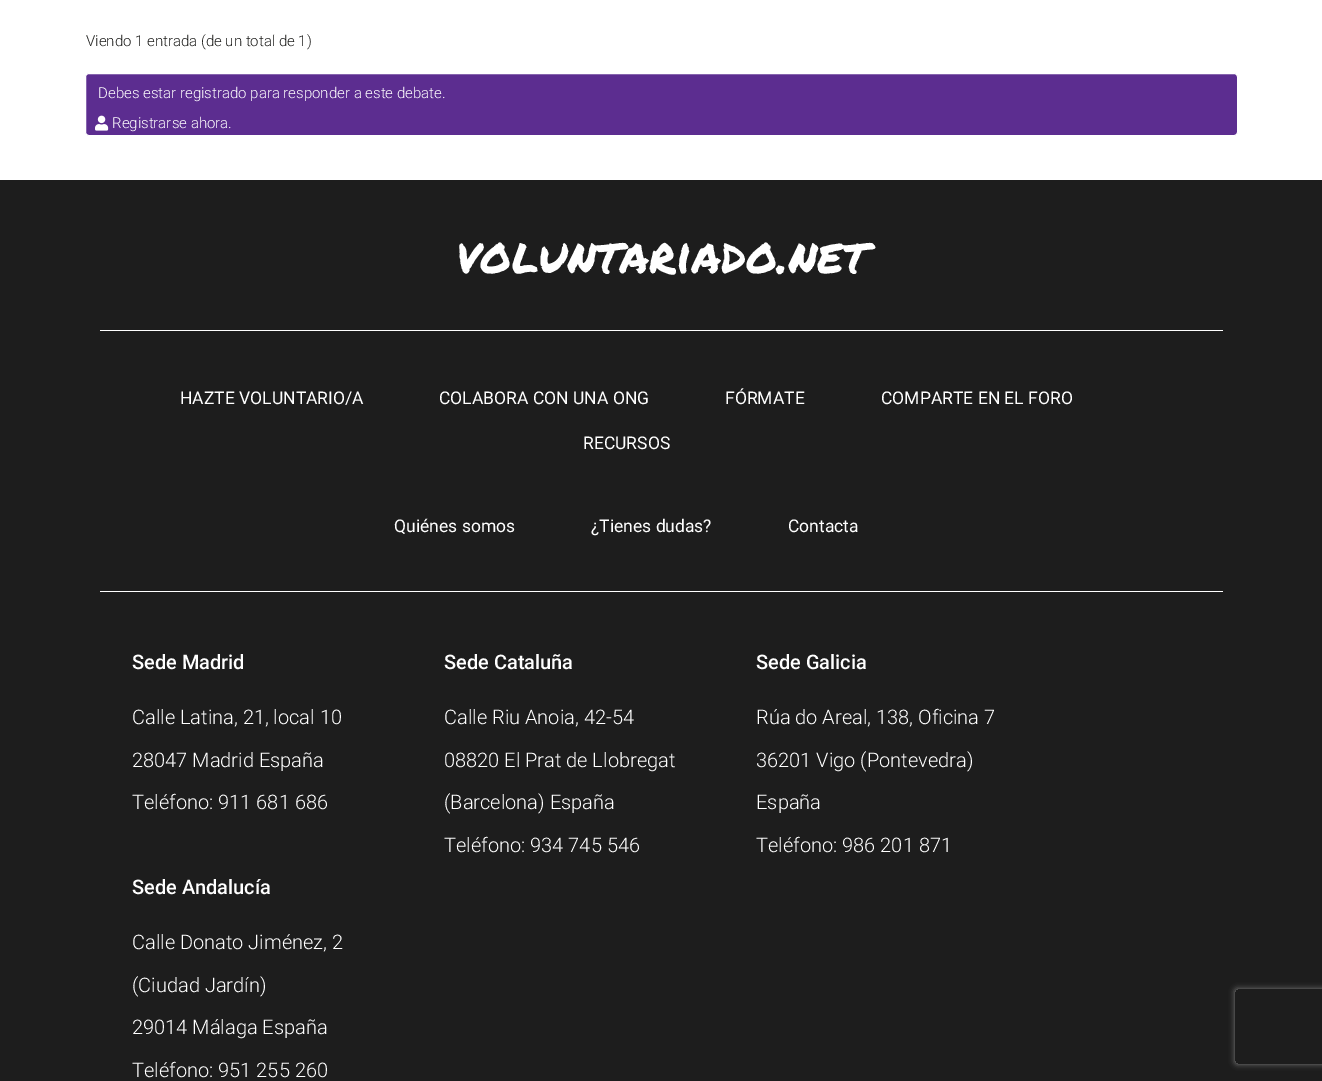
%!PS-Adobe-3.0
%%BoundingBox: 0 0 1322 1081
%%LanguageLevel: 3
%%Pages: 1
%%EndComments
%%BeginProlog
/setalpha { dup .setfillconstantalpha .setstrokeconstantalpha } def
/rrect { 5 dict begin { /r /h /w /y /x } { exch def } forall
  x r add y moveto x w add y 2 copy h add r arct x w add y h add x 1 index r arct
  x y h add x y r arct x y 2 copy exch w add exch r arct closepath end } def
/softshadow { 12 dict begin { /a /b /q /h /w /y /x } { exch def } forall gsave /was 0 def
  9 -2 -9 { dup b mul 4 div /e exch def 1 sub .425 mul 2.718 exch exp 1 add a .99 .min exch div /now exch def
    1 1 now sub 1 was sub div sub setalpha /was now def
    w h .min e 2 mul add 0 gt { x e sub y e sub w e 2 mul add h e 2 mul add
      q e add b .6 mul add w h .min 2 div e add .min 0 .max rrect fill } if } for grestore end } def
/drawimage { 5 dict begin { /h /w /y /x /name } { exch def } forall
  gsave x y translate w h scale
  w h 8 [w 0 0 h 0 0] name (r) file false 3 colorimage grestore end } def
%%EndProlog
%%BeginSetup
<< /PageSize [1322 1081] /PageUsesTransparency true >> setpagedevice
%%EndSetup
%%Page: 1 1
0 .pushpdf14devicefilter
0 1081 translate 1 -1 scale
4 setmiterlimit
1 setgray
0 0 1322 1081 rectfill
0.361 0.176 0.565 setrgbcolor
85.5 73.5 1152 62 3.5 rrect gsave fill grestore
1 setgray
stroke
(images/1.raw) 95 115 14 16 drawimage
0.114 setgray
0 180 1322 901 rectfill
1 setgray
100 330 1123 1 rectfill
100 591 1123 1 rectfill
gsave
newpath 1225 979 moveto 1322 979 lineto 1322 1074 lineto 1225 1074 lineto closepath 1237.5 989 moveto 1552.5 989 lineto 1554 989 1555 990 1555 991.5 curveto 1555 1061.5 lineto 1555 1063 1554 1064 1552.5 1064 curveto 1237.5 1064 lineto 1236 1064 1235 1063 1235 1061.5 curveto 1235 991.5 lineto 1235 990 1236 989 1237.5 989 curveto closepath eoclip newpath
0.502 setgray
1235 989 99 75 2.5 3 1 softshadow
grestore
/Roboto-Light [15 0 0 -15 0 0] selectfont
0.114 0.114 0.106 setrgbcolor
86 46 moveto (Viendo 1 entrada \(de un total de 1\)) show
1 setgray
98 98 moveto (Debes estar registrado para responder a este debate.) show
112 128 moveto (Registrarse ahora.) show
/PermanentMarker-Regular [50 0 0 -50 0 0] selectfont
456 273 moveto (voluntariado.net) show
/Roboto-Regular [17.5 0 0 -17.5 0 0] selectfont
180 404 moveto (HAZTE VOLUNTARIO/A) show
439 404 moveto (COLABORA CON UNA ONG) show
725 404 moveto (FÓRMATE) show
881 404 moveto (COMPARTE EN EL FORO) show
583 449 moveto (RECURSOS) show
394 532 moveto (Quiénes somos) show
591 532 moveto (¿Tienes dudas?) show
788 532 moveto (Contacta) show
/Roboto-Medium [20 0 0 -20 0 0] selectfont
132 669 moveto (Sede Madrid) show
/Roboto-Light [20 0 0 -20 0 0] selectfont
132 724 moveto (Calle Latina, 21, local 10) show
132 767 moveto (28047 Madrid España) show
132 809 moveto (Teléfono: 911 681 686) show
/Roboto-Medium [20 0 0 -20 0 0] selectfont
444 669 moveto (Sede Cataluña) show
/Roboto-Light [20 0 0 -20 0 0] selectfont
444 724 moveto (Calle Riu Anoia, 42-54) show
444 767 moveto (08820 El Prat de Llobregat) show
444 809 moveto (\(Barcelona\) España) show
444 852 moveto (Teléfono: 934 745 546) show
/Roboto-Medium [20 0 0 -20 0 0] selectfont
756 669 moveto (Sede Galicia) show
/Roboto-Light [20 0 0 -20 0 0] selectfont
756 724 moveto (Rúa do Areal, 138, Oficina 7) show
756 767 moveto (36201 Vigo \(Pontevedra\)) show
756 809 moveto (España) show
756 852 moveto (Teléfono: 986 201 871) show
/Roboto-Medium [20 0 0 -20 0 0] selectfont
132 894 moveto (Sede Andalucía) show
/Roboto-Light [20 0 0 -20 0 0] selectfont
132 949 moveto (Calle Donato Jiménez, 2) show
132 992 moveto (\(Ciudad Jardín\)) show
132 1034 moveto (29014 Málaga España) show
132 1077 moveto (Teléfono: 951 255 260) show
.poppdf14devicefilter showpage
%%EOF
